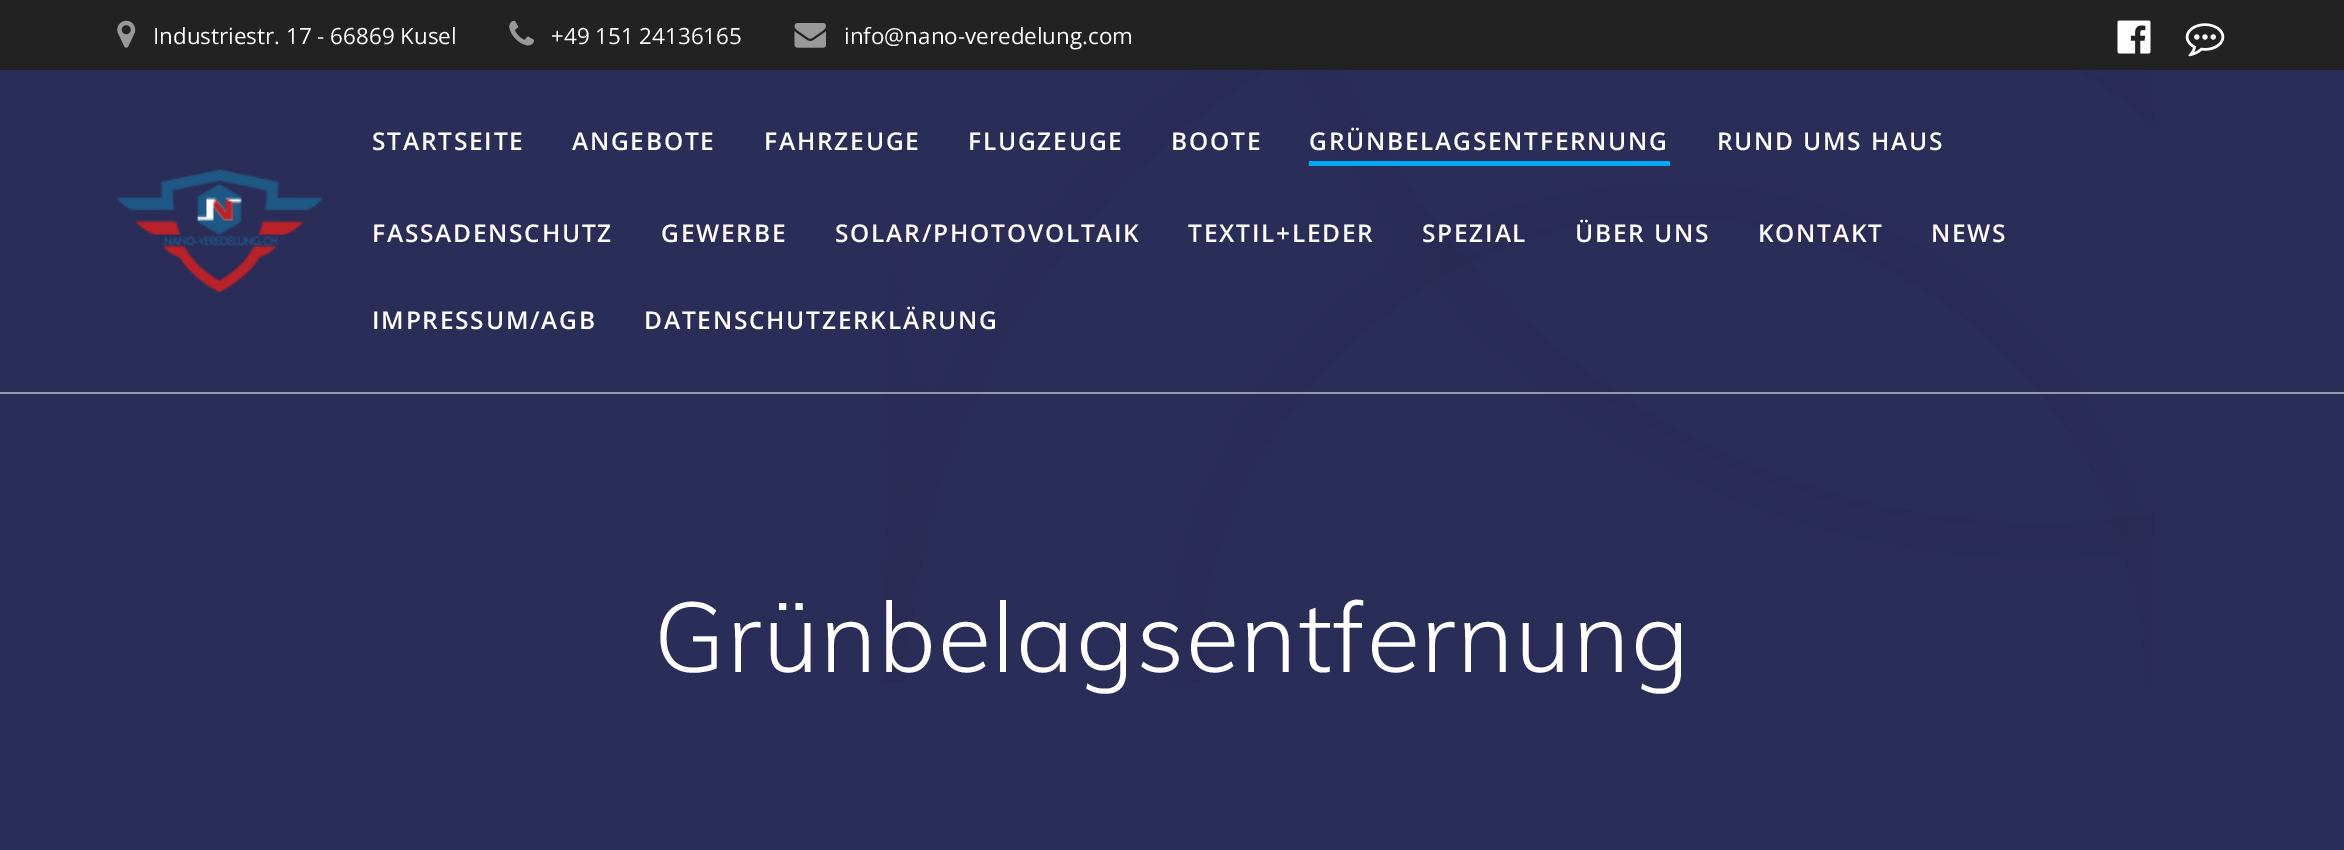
%!PS-Adobe-3.0
%%BoundingBox: 0 0 2344 850
%%LanguageLevel: 3
%%Pages: 1
%%EndComments
%%BeginProlog
/setalpha { dup .setfillconstantalpha .setstrokeconstantalpha } def
/drawimage { 5 dict begin { /h /w /y /x /name } { exch def } forall
  gsave x y translate w h scale
  w h 8 [w 0 0 h 0 0] name (r) file false 3 colorimage grestore end } def
%%EndProlog
%%BeginSetup
<< /PageSize [2344 850] /PageUsesTransparency true >> setpagedevice
%%EndSetup
%%Page: 1 1
0 .pushpdf14devicefilter
0 850 translate 1 -1 scale
4 setmiterlimit
0.169 0.176 0.349 setrgbcolor
0 0 2344 850 rectfill
0.133 setgray
0 0 2344 70 rectfill
(images/1.raw) 117 20 19 28 drawimage
(images/2.raw) 509 20 25 26 drawimage
(images/3.raw) 794 23 32 25 drawimage
(images/4.raw) 2117 20 34 34 drawimage
(images/5.raw) 2185 23 40 34 drawimage
(images/7.raw) 883 70 1271 612 drawimage
0.5 setalpha
1 setgray
0 392 2344 2 rectfill
1 setalpha
(images/6.raw) 117 169 205 124 drawimage
0.012 0.663 0.957 setrgbcolor
1309 161 361 5 rectfill
/OpenSans-Regular [22.4 0 0 -22.4 0 0] selectfont
1 setgray
153 44 moveto (Industriestr. 17 - 66869 Kusel) show
551 44 moveto (+49 151 24136165) show
844 44 moveto (info@nano-veredelung.com) show
/OpenSans-SemiBold [24.5 0 0 -24.5 0 0] selectfont
372 150 moveto 1.75 0 (STARTSEITE) ashow
572 150 moveto 1.75 0 (ANGEBOTE) ashow
764 150 moveto 1.75 0 (FAHRZEUGE) ashow
968 150 moveto 1.75 0 (FLUGZEUGE) ashow
1171 150 moveto 1.75 0 (BOOTE) ashow
1309 150 moveto 1.75 0 (GRÜNBELAGSENTFERNUNG) ashow
1717 150 moveto 1.75 0 (RUND UMS HAUS) ashow
372 242 moveto 1.75 0 (FASSADENSCHUTZ) ashow
661 242 moveto 1.75 0 (GEWERBE) ashow
835 242 moveto 1.75 0 (SOLAR/PHOTOVOLTAIK) ashow
1188 242 moveto 1.75 0 (TEXTIL+LEDER) ashow
1422 242 moveto 1.75 0 (SPEZIAL) ashow
1575 242 moveto 1.75 0 (ÜBER UNS) ashow
1758 242 moveto 1.75 0 (KONTAKT) ashow
1931 242 moveto 1.75 0 (NEWS) ashow
372 329 moveto 1.75 0 (IMPRESSUM/AGB) ashow
644 329 moveto 1.75 0 (DATENSCHUTZERKLÄRUNG) ashow
/Muli-Light [98 0 0 -98 0 0] selectfont
654 672 moveto 1.6 0 (Grünbelagsentfernung) ashow
.poppdf14devicefilter showpage
%%EOF
